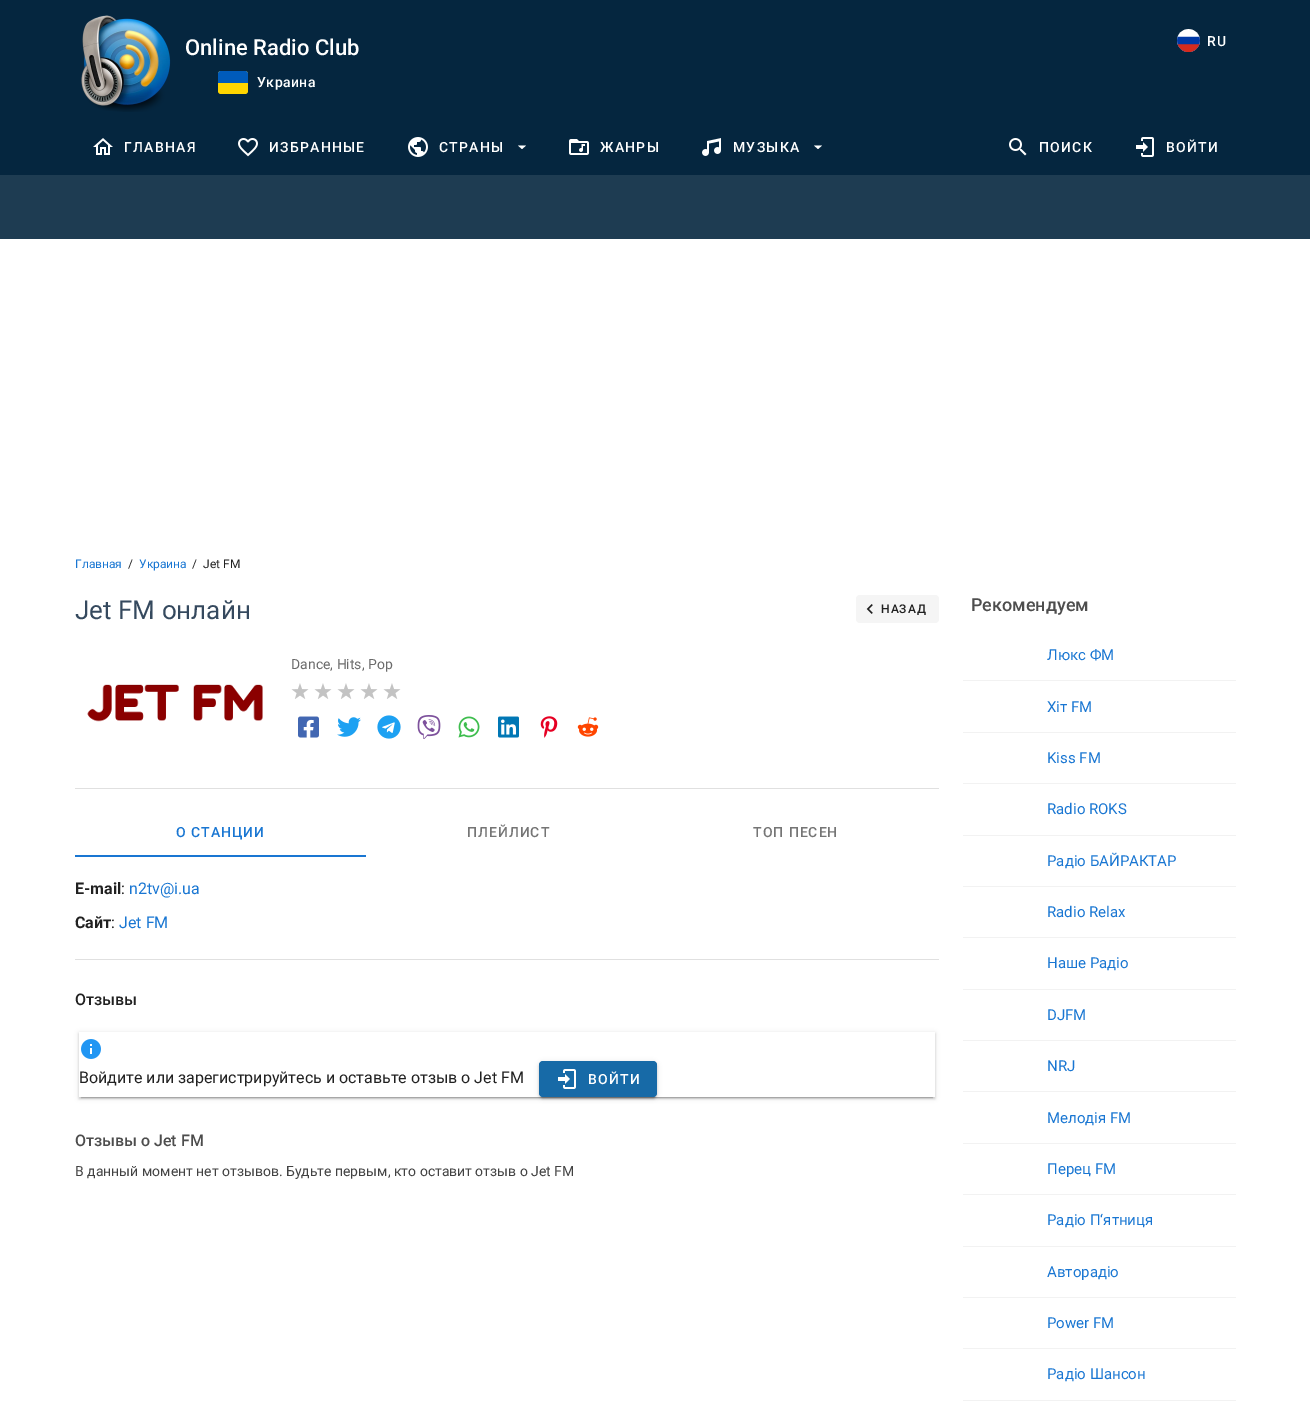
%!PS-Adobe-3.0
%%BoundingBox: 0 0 1310 1424
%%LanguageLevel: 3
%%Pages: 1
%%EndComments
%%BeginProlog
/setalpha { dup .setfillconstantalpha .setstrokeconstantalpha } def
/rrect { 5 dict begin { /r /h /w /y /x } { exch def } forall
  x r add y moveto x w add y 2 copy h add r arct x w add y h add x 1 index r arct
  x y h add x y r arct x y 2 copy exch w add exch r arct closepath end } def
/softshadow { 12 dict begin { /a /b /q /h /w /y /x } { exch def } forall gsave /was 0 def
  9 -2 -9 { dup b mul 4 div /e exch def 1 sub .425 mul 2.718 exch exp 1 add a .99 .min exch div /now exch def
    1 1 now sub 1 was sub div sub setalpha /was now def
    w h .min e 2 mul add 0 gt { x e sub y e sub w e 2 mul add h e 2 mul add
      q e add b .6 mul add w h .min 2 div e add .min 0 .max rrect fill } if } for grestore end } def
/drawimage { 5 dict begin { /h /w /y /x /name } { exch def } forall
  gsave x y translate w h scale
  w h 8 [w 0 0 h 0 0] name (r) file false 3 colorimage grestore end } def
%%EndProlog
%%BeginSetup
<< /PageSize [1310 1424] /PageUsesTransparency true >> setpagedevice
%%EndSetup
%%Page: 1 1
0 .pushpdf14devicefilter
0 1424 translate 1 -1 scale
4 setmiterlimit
1 setgray
0 0 1310 1424 rectfill
0.02 0.149 0.247 setrgbcolor
0 0 1310 175 rectfill
(images/1.raw) 81 15 90 97 drawimage
1 0.835 0 setrgbcolor
218 71 30 23 3 rrect fill
0 0.357 0.733 setrgbcolor
newpath 221 71 moveto 245 71 lineto 246.5 71 248 72.5 248 74 curveto 248 83 lineto 218 83 lineto 218 74 lineto 218 72.5 219.5 71 221 71 curveto closepath fill
(images/2.raw) 1177 29 23 23 drawimage
(images/3.raw) 93 138 20 17 drawimage
(images/4.raw) 238 138 20 19 drawimage
(images/5.raw) 408 137 20 20 drawimage
1 setgray
newpath 518 145.5 moveto 522 149 lineto 526 145.5 lineto closepath fill
(images/6.raw) 569 139 20 16 drawimage
(images/7.raw) 702 138 19 18 drawimage
newpath 814 145.5 moveto 818 149 lineto 822 145.5 lineto closepath fill
(images/8.raw) 1009 138 18 18 drawimage
(images/9.raw) 1136 137 18 20 drawimage
0.118 0.235 0.322 setrgbcolor
0 175 1310 64 rectfill
0.961 setgray
856 595 83 28 4 rrect fill
(images/10.raw) 866 604 7 10 drawimage
(images/11.raw) 291 683 18 16 drawimage
(images/11.raw) 314 683 18 16 drawimage
(images/11.raw) 337 683 18 16 drawimage
(images/11.raw) 360 683 18 16 drawimage
(images/11.raw) 383 683 18 16 drawimage
(images/12.raw) 298 716 21 22 drawimage
(images/13.raw) 337 717 24 20 drawimage
(images/14.raw) 377 715 24 24 drawimage
(images/15.raw) 417 715 24 24 drawimage
(images/16.raw) 458 716 22 22 drawimage
(images/17.raw) 498 716 21 22 drawimage
(images/18.raw) 540 716 18 22 drawimage
(images/19.raw) 577 717 22 20 drawimage
(images/20.raw) 87 684 176 38 drawimage
0.878 setgray
75 788 864 1 rectfill
0.098 0.463 0.824 setrgbcolor
75 855 291 2 rectfill
0.878 setgray
75 959 864 1 rectfill
gsave
newpath 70 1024 moveto 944 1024 lineto 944 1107 lineto 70 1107 lineto closepath 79 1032 moveto 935 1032 lineto 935 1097 lineto 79 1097 lineto closepath eoclip newpath
0 setgray
79 1033 856 65 0 2.5 0.12 softshadow
grestore
gsave
newpath 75 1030 moveto 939 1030 lineto 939 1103 lineto 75 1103 lineto closepath 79 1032 moveto 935 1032 lineto 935 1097 lineto 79 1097 lineto closepath eoclip newpath
0 setgray
79 1034 856 65 0 1 0.14 softshadow
grestore
gsave
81 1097 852 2 rectclip
0 setgray
81 1037 852 61 0 0.5 0.2 softshadow
grestore
(images/21.raw) 81 1039 20 20 drawimage
0 setgray
539 1062 118 36 4 2.5 0.12 softshadow
539 1063 118 36 4 1 0.14 softshadow
541 1066 114 32 2 0.5 0.2 softshadow
0.09 0.416 0.655 setrgbcolor
539 1061 118 36 4 rrect fill
(images/22.raw) 558 1069 18 20 drawimage
0.949 setgray
963 680 273 1 rectfill
963 732 273 1 rectfill
963 783 273 1 rectfill
963 835 273 1 rectfill
963 886 273 1 rectfill
963 937 273 1 rectfill
963 989 273 1 rectfill
963 1040 273 1 rectfill
963 1091 273 1 rectfill
963 1143 273 1 rectfill
963 1194 273 1 rectfill
963 1246 273 1 rectfill
963 1297 273 1 rectfill
963 1348 273 1 rectfill
963 1400 273 1 rectfill
/Roboto-Medium [22 0 0 -22 0 0] selectfont
1 setgray
185 55 moveto (Online Radio Club) show
/Roboto-Medium [14 0 0 -14 0 0] selectfont
257 87 moveto 0.5 0 (Украина) ashow
1207 46 moveto 1.25 0 (RU) ashow
124 152 moveto 1.25 0 (ГЛАВНАЯ) ashow
269 152 moveto 1.25 0 (ИЗБРАННЫЕ) ashow
439 152 moveto 1.25 0 (СТРАНЫ) ashow
600 152 moveto 1.25 0 (ЖАНРЫ) ashow
733 152 moveto 1.25 0 (МУЗЫКА) ashow
1039 152 moveto 1.25 0 (ПОИСК) ashow
1166 152 moveto 1.25 0 (ВОЙТИ) ashow
/Roboto-Regular [12 0 0 -12 0 0] selectfont
0.098 0.463 0.824 setrgbcolor
75 568 moveto (Главная) show
0.129 setgray
128 568 moveto (/) show
0.098 0.463 0.824 setrgbcolor
139 568 moveto (Украина) show
0.129 setgray
192 568 moveto (/) show
203 568 moveto (Jet FM) show
/Roboto-Regular [26 0 0 -26 0 0] selectfont
0.208 0.286 0.369 setrgbcolor
75 619 moveto (Jet FM онлайн) show
/Roboto-Medium [12 0 0 -12 0 0] selectfont
0.129 setgray
881 613 moveto 1 0 (НАЗАД) ashow
/Roboto-Regular [14 0 0 -14 0 0] selectfont
0.42 setgray
291 669 moveto (Dance, Hits, Pop) show
/Roboto-Medium [14 0 0 -14 0 0] selectfont
0.098 0.463 0.824 setrgbcolor
176 837 moveto 1 0 (О СТАНЦИИ) ashow
0.459 setgray
467 837 moveto 1 0 (ПЛЕЙЛИСТ) ashow
753 837 moveto 1 0 (ТОП ПЕСЕН) ashow
/Roboto-Bold [16 0 0 -16 0 0] selectfont
0.129 setgray
75 894 moveto (E-mail) show
/Roboto-Regular [16 0 0 -16 0 0] selectfont
121 894 moveto (:) show
0.098 0.463 0.824 setrgbcolor
129 894 moveto (n2tv@i.ua) show
/Roboto-Bold [16 0 0 -16 0 0] selectfont
0.129 setgray
75 928 moveto (Сайт) show
/Roboto-Regular [16 0 0 -16 0 0] selectfont
111 928 moveto (:) show
0.098 0.463 0.824 setrgbcolor
119 928 moveto (Jet FM) show
/Roboto-Medium [16 0 0 -16 0 0] selectfont
0.129 setgray
75 1005 moveto (Отзывы) show
/Roboto-Regular [16 0 0 -16 0 0] selectfont
79 1083 moveto (Войдите или зарегистрируйтесь и оставьте отзыв о Jet FM) show
/Roboto-Medium [14 0 0 -14 0 0] selectfont
1 setgray
588 1084 moveto 1.25 0 (ВОЙТИ) ashow
/Roboto-Medium [16 0 0 -16 0 0] selectfont
0.302 setgray
75 1146 moveto (Отзывы о Jet FM) show
/Roboto-Regular [14 0 0 -14 0 0] selectfont
0.259 setgray
75 1176 moveto (В данный момент нет отзывов. Будьте первым, кто оставит отзыв о Jet FM) show
/Roboto-Medium [18 0 0 -18 0 0] selectfont
0.302 setgray
971 611 moveto (Рекомендуем) show
/Roboto-Regular [15 0 0 -15 0 0] selectfont
0.098 0.463 0.824 setrgbcolor
1047 660 moveto (Люкс ФМ) show
1047 712 moveto (Хіт FM) show
1047 763 moveto (Kiss FM) show
1047 814 moveto (Radio ROKS) show
1047 866 moveto (Радіо БАЙРАКТАР) show
1047 917 moveto (Radio Relax) show
1047 968 moveto (Наше Радіо) show
1047 1020 moveto (DJFM) show
1047 1071 moveto (NRJ) show
1047 1123 moveto (Мелодія FM) show
1047 1174 moveto (Перец FM) show
1047 1225 moveto (Радіо П‘ятниця) show
1047 1277 moveto (Авторадіо) show
1047 1328 moveto (Power FM) show
1047 1379 moveto (Радіо Шансон) show
.poppdf14devicefilter showpage
%%EOF
